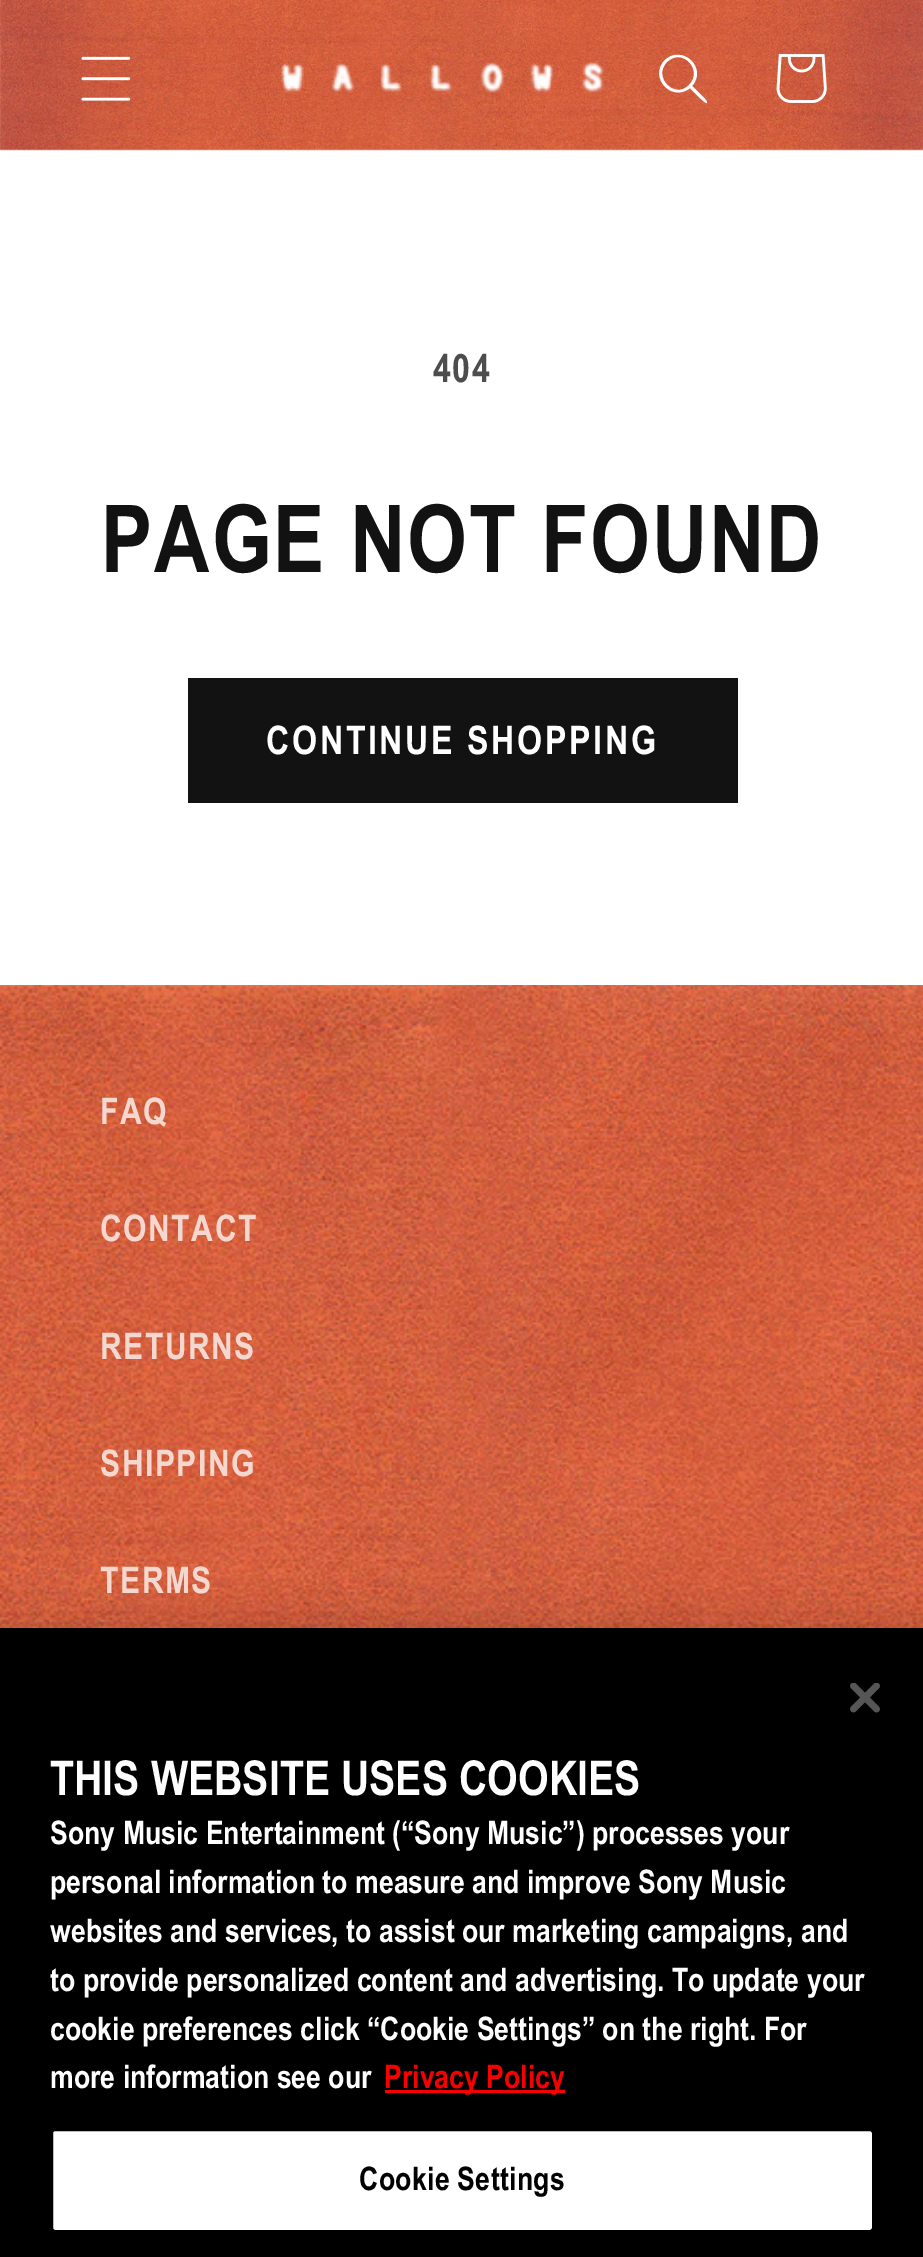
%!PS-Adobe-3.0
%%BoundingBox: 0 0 923 2257
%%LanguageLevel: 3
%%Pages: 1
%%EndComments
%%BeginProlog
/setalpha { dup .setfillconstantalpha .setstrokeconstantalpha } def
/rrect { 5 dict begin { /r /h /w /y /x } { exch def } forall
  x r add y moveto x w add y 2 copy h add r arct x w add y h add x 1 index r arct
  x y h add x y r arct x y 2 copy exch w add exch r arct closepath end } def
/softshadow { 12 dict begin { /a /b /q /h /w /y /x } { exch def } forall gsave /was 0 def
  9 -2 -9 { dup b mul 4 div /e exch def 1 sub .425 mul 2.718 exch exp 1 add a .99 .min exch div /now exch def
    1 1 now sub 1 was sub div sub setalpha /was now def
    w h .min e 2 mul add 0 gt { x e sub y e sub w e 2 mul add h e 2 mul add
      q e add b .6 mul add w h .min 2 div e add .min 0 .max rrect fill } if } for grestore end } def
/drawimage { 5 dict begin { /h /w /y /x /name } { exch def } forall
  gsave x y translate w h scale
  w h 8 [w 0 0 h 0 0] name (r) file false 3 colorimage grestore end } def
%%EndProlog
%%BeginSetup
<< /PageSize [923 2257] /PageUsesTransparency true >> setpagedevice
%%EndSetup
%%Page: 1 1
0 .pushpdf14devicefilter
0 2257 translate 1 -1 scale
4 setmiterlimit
1 setgray
0 0 923 2257 rectfill
(images/1.raw) 0 0 923 151 drawimage
(images/2.raw) 81 56 50 45 drawimage
(images/3.raw) 280 61 324 32 drawimage
newpath 689 85 moveto 675 100 652 77 667 62 curveto 682 47 704 70 689 85 curveto closepath 690 88 moveto 672 103 648 77 665 60 curveto 682 44 708 68 692 86 curveto 694 88 707 100 707 102 curveto 707 103 lineto 705 104 692 90 690 88 curveto closepath eofill
(images/4.raw) 776 54 51 49 drawimage
0.071 setgray
188 678 550 125 rectfill
(images/5.raw) 0 985 923 643 drawimage
0 setgray
0 1628 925 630 0 22.5 0.2 softshadow
0 1628 923 629 rectfill
(images/6.raw) 850 1683 30 30 drawimage
0.976 0 0 setrgbcolor
385 2090 180 3 rectfill
1 setgray
51.5 2129.5 822 102 3.5 rrect gsave fill grestore
0 setgray
3 setlinewidth
stroke
/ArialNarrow-Bold [39.4 0 0 -39.4 0 0] selectfont
0.302 setgray
433 382 moveto 1.5 0 (404) ashow
/ArialNarrow-Bold [93.75 0 0 -93.75 0 0] selectfont
0.071 setgray
101 572 moveto 1.9 0 (PAGE NOT FOUND) ashow
/ArialNarrow-Bold [39.4 0 0 -39.4 0 0] selectfont
1 setgray
266 754 moveto 2.6 0 (CONTINUE SHOPPING) ashow
/ArialNarrow-Bold [36.75 0 0 -36.75 0 0] selectfont
0.957 0.843 0.812 setrgbcolor
100 1124 moveto 1.5 0 (FAQ) ashow
100 1241 moveto 1.5 0 (CONTACT) ashow
100 1359 moveto 1.5 0 (RETURNS) ashow
100 1476 moveto 1.5 0 (SHIPPING) ashow
100 1593 moveto 1.5 0 (TERMS) ashow
/ArialNarrow-Bold [48 0 0 -48 0 0] selectfont
1 setgray
50 1795 moveto (THIS WEBSITE USES COOKIES) show
/ArialNarrow-Bold [32.5 0 0 -32.5 0 0] selectfont
50 1844 moveto (Sony Music Entertainment \(“Sony Music”\) processes your) show
50 1893 moveto (personal information to measure and improve Sony Music) show
50 1942 moveto (websites and services, to assist our marketing campaigns, and) show
50 1991 moveto (to provide personalized content and advertising. To update your) show
50 2040 moveto (cookie preferences click “Cookie Settings” on the right. For) show
50 2088 moveto (more information see our) show
0.976 0 0 setrgbcolor
384 2088 moveto (Privacy Policy) show
0 setgray
359 2190 moveto 0.3 0 (Cookie Settings) ashow
.poppdf14devicefilter showpage
%%EOF
